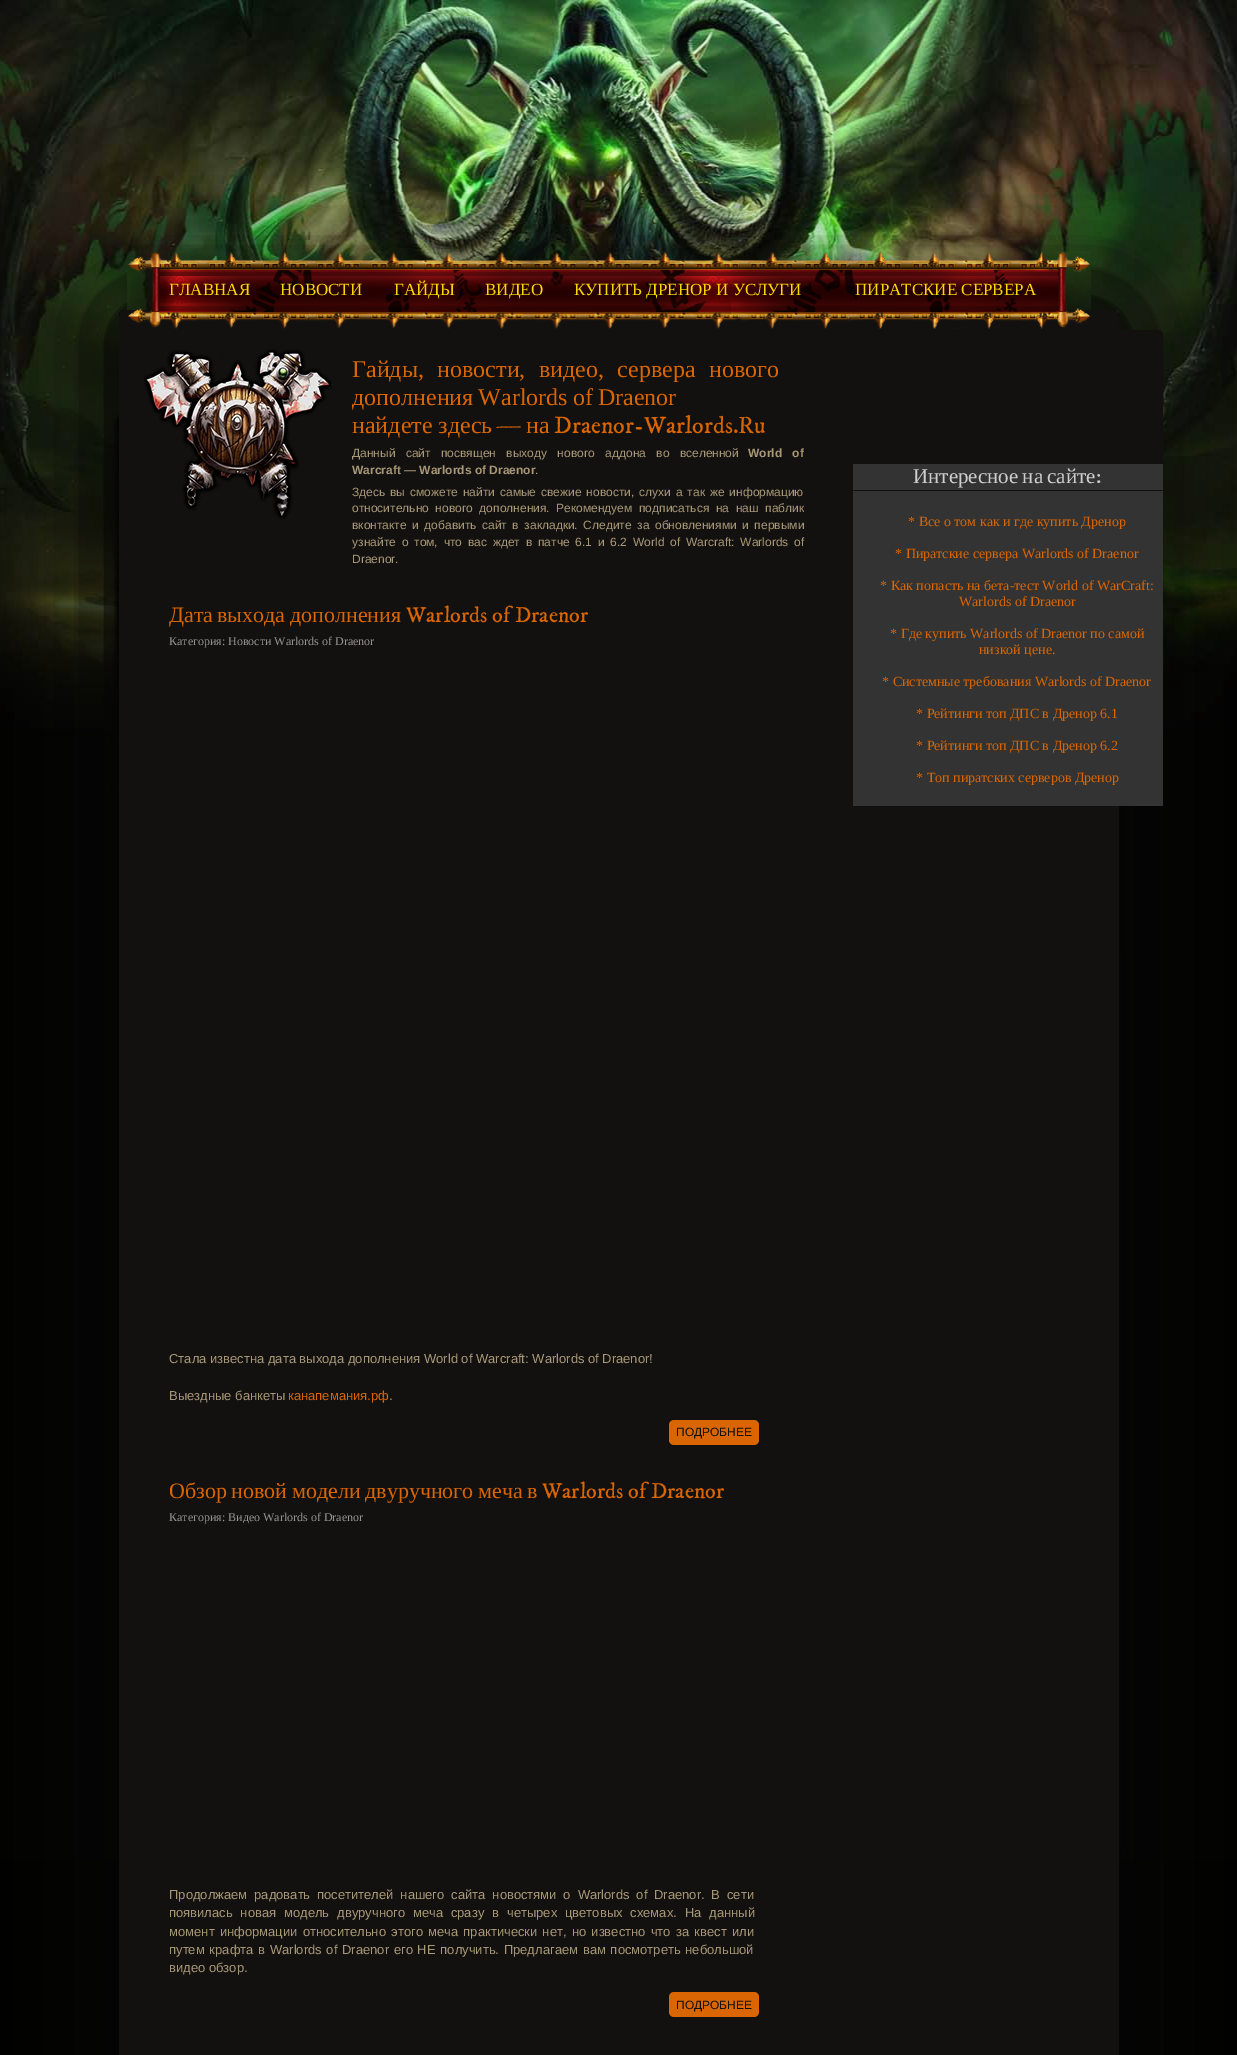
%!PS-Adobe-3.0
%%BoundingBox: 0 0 1237 2055
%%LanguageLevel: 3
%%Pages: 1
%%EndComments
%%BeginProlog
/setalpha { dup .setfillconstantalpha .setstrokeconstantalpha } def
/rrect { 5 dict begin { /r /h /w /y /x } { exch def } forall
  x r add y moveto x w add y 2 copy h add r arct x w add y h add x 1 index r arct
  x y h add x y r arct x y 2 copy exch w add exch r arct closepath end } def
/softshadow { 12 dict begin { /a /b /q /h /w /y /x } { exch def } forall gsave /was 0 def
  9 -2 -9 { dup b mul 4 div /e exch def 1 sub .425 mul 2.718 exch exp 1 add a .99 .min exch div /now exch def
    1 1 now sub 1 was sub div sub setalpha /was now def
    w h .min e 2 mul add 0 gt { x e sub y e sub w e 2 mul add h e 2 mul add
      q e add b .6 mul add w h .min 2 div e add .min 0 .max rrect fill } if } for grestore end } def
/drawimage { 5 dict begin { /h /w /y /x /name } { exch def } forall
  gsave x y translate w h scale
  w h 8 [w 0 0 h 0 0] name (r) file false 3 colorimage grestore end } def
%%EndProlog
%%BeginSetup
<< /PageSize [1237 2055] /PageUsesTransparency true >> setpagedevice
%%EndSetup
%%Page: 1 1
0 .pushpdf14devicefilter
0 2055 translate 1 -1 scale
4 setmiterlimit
0 setgray
0 0 1237 2055 rectfill
(images/1.raw) 0 0 1237 1860 drawimage
0.071 0.067 0.059 setrgbcolor
119 310 1000 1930 5 60 1 softshadow
119 310 1000 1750 5 rrect fill
gsave
newpath 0 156 moveto 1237 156 lineto 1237 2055 lineto 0 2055 lineto closepath 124 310 moveto 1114 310 lineto 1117 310 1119 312 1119 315 curveto 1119 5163 lineto 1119 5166 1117 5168 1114 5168 curveto 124 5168 lineto 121 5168 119 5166 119 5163 curveto 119 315 lineto 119 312 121 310 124 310 curveto closepath eoclip newpath
0 setgray
116 307 1006 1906 8 50 1 softshadow
grestore
(images/2.raw) 127 251 964 78 drawimage
(images/3.raw) 1115 310 4 4 drawimage
(images/4.raw) 144 349 188 170 drawimage
0.851 0.396 0.012 setrgbcolor
669 1420 90 25 5 rrect fill
669 1992 90 25 5 rrect fill
0.071 0.067 0.059 setrgbcolor
853 330 310 476 5 rrect fill
0.2 setgray
853 464 310 26 rectfill
853 491 310 315 rectfill
/LiberationSerif-Regular [17 0 0 -17 0 0] selectfont
1 0.843 0 setrgbcolor
169 295 moveto (ГЛАВНАЯ) show
280 295 moveto (НОВОСТИ) show
394 295 moveto (ГАЙДЫ) show
485 295 moveto (ВИДЕО) show
574 295 moveto (КУПИТЬ ДРЕНОР И УСЛУГИ) show
855 295 moveto (ПИРАТСКИЕ СЕРВЕРА) show
/LiberationSerif-Regular [24 0 0 -24 0 0] selectfont
0.851 0.396 0.012 setrgbcolor
352 377 moveto 7.5 0 32 (Гайды, новости, видео, сервера нового) widthshow
352 405 moveto -1 0 32 (дополнения Warlords of Draenor) widthshow
352 433 moveto (найдете здесь) show
/IMFELLDWPica-Regular [24 0 0 -24 0 0] selectfont
496 433 moveto (—) show
/LiberationSerif-Regular [24 0 0 -24 0 0] selectfont
526 433 moveto (на) show
/IMFELLDWPica-Regular [24 0 0 -24 0 0] selectfont
554 433 moveto (Draenor-Warlords.Ru) show
/LiberationSans-Regular [12 0 0 -12 0 0] selectfont
0.663 0.596 0.467 setrgbcolor
352 457 moveto 7 0 32 (Данный сайт посвящен выходу нового аддона во вселенной) widthshow
/LiberationSans-Bold [12 0 0 -12 0 0] selectfont
748 457 moveto 7 0 32 (World of) widthshow
352 474 moveto (Warcraft — Warlords of Draenor) show
/LiberationSans-Regular [12 0 0 -12 0 0] selectfont
535 474 moveto (.) show
352 496 moveto 1.6 0 32 (Здесь вы сможете найти самые свежие новости, слухи а так же информацию) widthshow
352 512 moveto 3.25 0 32 (относительно нового дополнения. Рекомендуем подписаться на наш паблик) widthshow
352 529 moveto 2.25 0 32 (вконтакте и добавить сайт в закладки. Следите за обновлениями и первыми) widthshow
352 546 moveto 2.5 0 32 (узнайте о том, что вас ждет в патче 6.1 и 6.2 World of Warcraft: Warlords of) widthshow
352 563 moveto (Draenor.) show
/LiberationSerif-Regular [22 0 0 -22 0 0] selectfont
0.851 0.396 0.012 setrgbcolor
169 622 moveto (Дата) show
217 622 moveto (выхода) show
290 622 moveto (дополнения) show
/IMFELLDWPica-Regular [22 0 0 -22 0 0] selectfont
406 622 moveto (Warlords of Draenor) show
/LiberationSerif-Regular [12 0 0 -12 0 0] selectfont
0.596 0.573 0.576 setrgbcolor
169 645 moveto (Категория: Новости Warlords of Draenor) show
/LiberationSans-Regular [13 0 0 -13 0 0] selectfont
0.663 0.596 0.467 setrgbcolor
169 1363 moveto (Стала известна дата выхода дополнения World of Warcraft: Warlords of Draenor!) show
169 1400 moveto (Выездные банкеты) show
0.851 0.396 0.012 setrgbcolor
288 1400 moveto (канапемания.рф) show
0.663 0.596 0.467 setrgbcolor
389 1400 moveto (.) show
/LiberationSans-Regular [12 0 0 -12 0 0] selectfont
0.071 0.067 0.059 setrgbcolor
676 1436 moveto (ПОДРОБНЕЕ) show
/LiberationSerif-Regular [22 0 0 -22 0 0] selectfont
0.851 0.396 0.012 setrgbcolor
169 1498 moveto (Обзор) show
231 1498 moveto (новой) show
292 1498 moveto (модели) show
365 1498 moveto (двуручного) show
478 1498 moveto (меча) show
527 1498 moveto (в) show
/IMFELLDWPica-Regular [22 0 0 -22 0 0] selectfont
542 1498 moveto (Warlords of Draenor) show
/LiberationSerif-Regular [12 0 0 -12 0 0] selectfont
0.596 0.573 0.576 setrgbcolor
169 1521 moveto (Категория: Видео Warlords of Draenor) show
/LiberationSans-Regular [13 0 0 -13 0 0] selectfont
0.663 0.596 0.467 setrgbcolor
169 1899 moveto 3.25 0 32 (Продолжаем радовать посетителей нашего сайта новостями о Warlords of Draenor. В сети) widthshow
169 1917 moveto 4.25 0 32 (появилась новая модель двуручного меча сразу в четырех цветовых схемах. На данный) widthshow
169 1936 moveto 1.6 0 32 (момент информации относительно этого меча практически нет, но известно что за квест или) widthshow
169 1954 moveto 1.1 0 32 (путем крафта в Warlords of Draenor его НЕ получить. Предлагаем вам посмотреть небольшой) widthshow
169 1972 moveto (видео обзор.) show
/LiberationSans-Regular [12 0 0 -12 0 0] selectfont
0.071 0.067 0.059 setrgbcolor
676 2009 moveto (ПОДРОБНЕЕ) show
/LiberationSerif-Regular [21 0 0 -21 0 0] selectfont
0.812 setgray
913 483 moveto -1 0 32 (Интересное на сайте) widthshow
/IMFELLDWPica-Regular [21 0 0 -21 0 0] selectfont
1096 483 moveto (:) show
/LiberationSerif-Regular [14 0 0 -14 0 0] selectfont
0.851 0.396 0.012 setrgbcolor
908 526 moveto (* Все о том как и где купить Дренор) show
895 558 moveto (* Пиратские сервера Warlords of Draenor) show
880 590 moveto (* Как попасть на бета-тест World of WarCraft:) show
959 606 moveto (Warlords of Draenor) show
890 638 moveto (* Где купить Warlords of Draenor по самой) show
979 654 moveto (низкой цене.) show
882 686 moveto (* Системные требования Warlords of Draenor) show
916 718 moveto (* Рейтинги топ ДПС в Дренор 6.1) show
916 750 moveto (* Рейтинги топ ДПС в Дренор 6.2) show
916 782 moveto (* Топ пиратских серверов Дренор) show
.poppdf14devicefilter showpage
%%EOF
